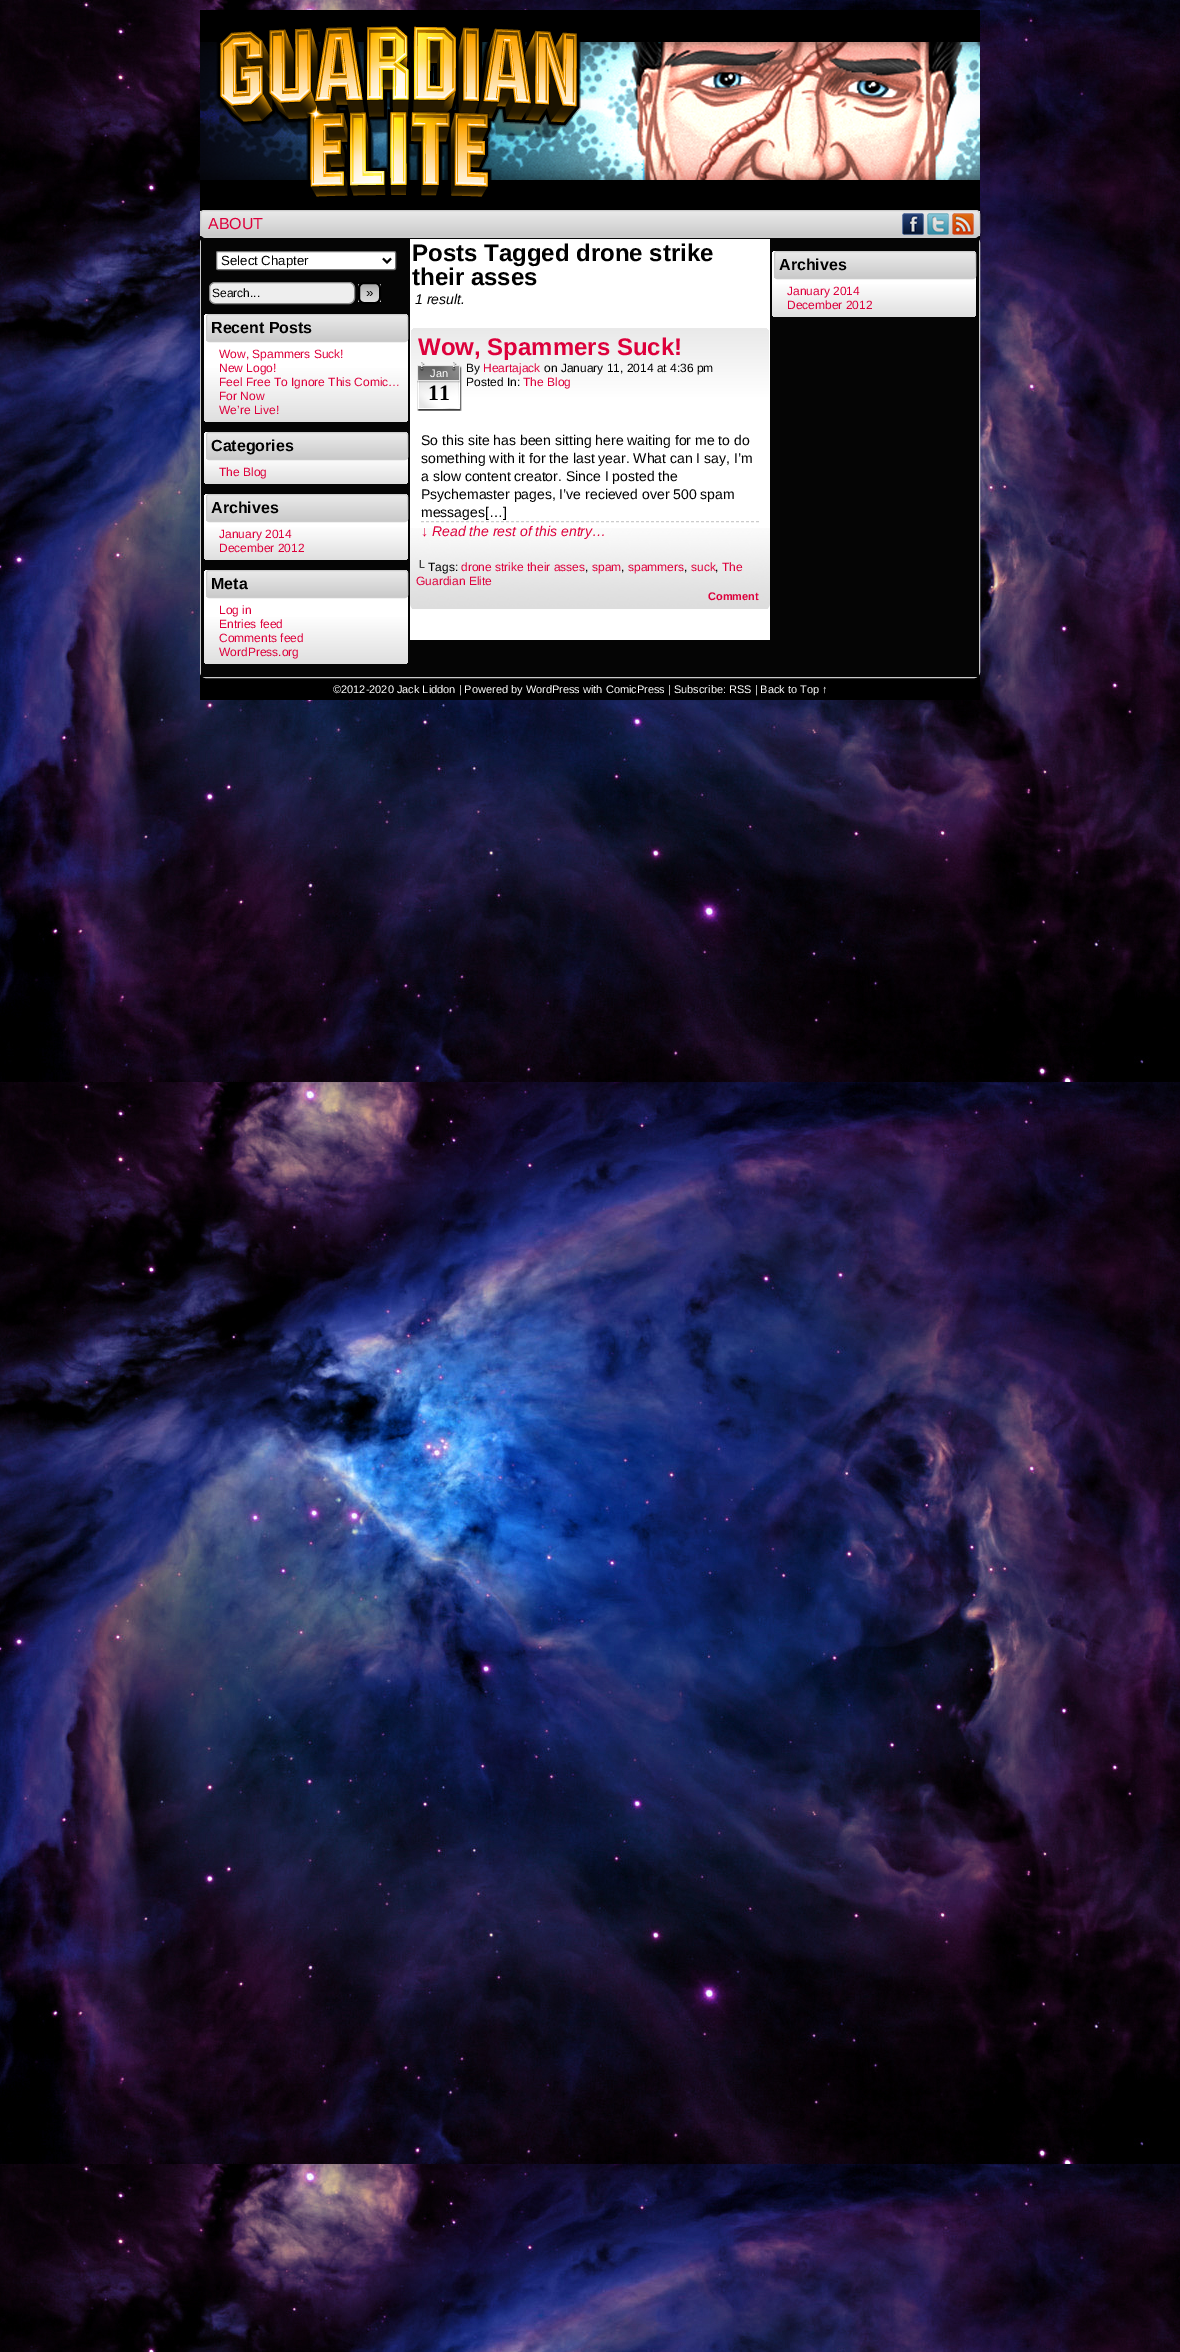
%!PS-Adobe-3.0
%%BoundingBox: 0 0 1180 2352
%%LanguageLevel: 3
%%Pages: 1
%%EndComments
%%BeginProlog
/setalpha { dup .setfillconstantalpha .setstrokeconstantalpha } def
/rrect { 5 dict begin { /r /h /w /y /x } { exch def } forall
  x r add y moveto x w add y 2 copy h add r arct x w add y h add x 1 index r arct
  x y h add x y r arct x y 2 copy exch w add exch r arct closepath end } def
/softshadow { 12 dict begin { /a /b /q /h /w /y /x } { exch def } forall gsave /was 0 def
  9 -2 -9 { dup b mul 4 div /e exch def 1 sub .425 mul 2.718 exch exp 1 add a .99 .min exch div /now exch def
    1 1 now sub 1 was sub div sub setalpha /was now def
    w h .min e 2 mul add 0 gt { x e sub y e sub w e 2 mul add h e 2 mul add
      q e add b .6 mul add w h .min 2 div e add .min 0 .max rrect fill } if } for grestore end } def
/drawimage { 5 dict begin { /h /w /y /x /name } { exch def } forall
  gsave x y translate w h scale
  w h 8 [w 0 0 h 0 0] name (r) file false 3 colorimage grestore end } def
%%EndProlog
%%BeginSetup
<< /PageSize [1180 2352] /PageUsesTransparency true >> setpagedevice
%%EndSetup
%%Page: 1 1
0 .pushpdf14devicefilter
0 2352 translate 1 -1 scale
4 setmiterlimit
1 setgray
0 0 1180 2352 rectfill
(images/1.raw) 0 0 1180 2352 drawimage
0 setgray
200 10 780 690 rectfill
(images/2.raw) 200 26 780 171 drawimage
202 212 780 27 4 2 0.2 softshadow
gsave
200 210 780 27 4 rrect clip newpath
gsave newpath 200 211 moveto 980 211 lineto 980 236 lineto 200 236 lineto closepath clip newpath
<< /ShadingType 2 /ColorSpace /DeviceRGB /Coords [590 211 590 236] /Extend [true true] /Function << /FunctionType 2 /Domain [0 1] /C0 [0.918 0.918 0.918] /C1 [0.792 0.792 0.792] /N 1 >> >> shfill grestore
grestore
0.8 setgray
200.5 210.5 779 26 3.5 rrect stroke
(images/3.raw) 902 213 22 22 drawimage
(images/4.raw) 927 213 22 22 drawimage
(images/5.raw) 952 213 22 22 drawimage
200.5 237.5 779 440 5.5 rrect stroke
0.02 setgray
201 238 778 439 rectfill
1 setgray
216.5 251.5 179 18 1.5 rrect gsave fill grestore
0.463 setgray
stroke
0 setgray
2 setlinewidth
newpath 383 258.5 moveto 387 262.5 lineto 391 258.5 lineto stroke
0.933 setgray
209.5 282.5 145 21 5.5 rrect gsave fill grestore
0.533 setgray
1 setlinewidth
stroke
gsave
358 282 23 22 6 rrect clip newpath
gsave newpath 358 284 moveto 381 284 lineto 381 302 lineto 358 302 lineto closepath clip newpath
<< /ShadingType 2 /ColorSpace /DeviceRGB /Coords [370 284 370 302] /Extend [true true] /Function << /FunctionType 3 /Domain [0 1] /Functions [<< /FunctionType 2 /Domain [0 1] /C0 [0.667 0.667 0.667] /C1 [0.8 0.8 0.8] /N 1 >> << /FunctionType 2 /Domain [0 1] /C0 [0.8 0.8 0.8] /C1 [0.867 0.867 0.867] /N 1 >>] /Bounds [0.5] /Encode [0 1 0 1] >> >> shfill grestore
grestore
0 setgray
2 setlinewidth
359 283 21 20 5 rrect stroke
gsave 204 314 204 108 4 rrect clip newpath
<< /ShadingType 2 /ColorSpace /DeviceRGB /Coords [306 314 306 422] /Extend [true true] /Function << /FunctionType 3 /Domain [0 1] /Functions [<< /FunctionType 2 /Domain [0 1] /C0 [1 1 1] /C1 [1 1 1] /N 1 >> << /FunctionType 2 /Domain [0 1] /C0 [1 1 1] /C1 [0.875 0.875 0.875] /N 1 >>] /Bounds [0.49] /Encode [0 1 0 1] >> >> shfill grestore
gsave
206 314 202 28 3 rrect clip newpath
gsave newpath 206 315 moveto 408 315 lineto 408 341 lineto 206 341 lineto closepath clip newpath
<< /ShadingType 2 /ColorSpace /DeviceRGB /Coords [307 315 307 341] /Extend [true true] /Function << /FunctionType 2 /Domain [0 1] /C0 [0.918 0.918 0.918] /C1 [0.792 0.792 0.792] /N 1 >> >> shfill grestore
grestore
0.8 setgray
1 setlinewidth
206.5 314.5 201 27 2.5 rrect stroke
gsave 204 432 204 52 4 rrect clip newpath
<< /ShadingType 2 /ColorSpace /DeviceRGB /Coords [306 432 306 484] /Extend [true true] /Function << /FunctionType 3 /Domain [0 1] /Functions [<< /FunctionType 2 /Domain [0 1] /C0 [1 1 1] /C1 [1 1 1] /N 1 >> << /FunctionType 2 /Domain [0 1] /C0 [1 1 1] /C1 [0.875 0.875 0.875] /N 1 >>] /Bounds [0.49] /Encode [0 1 0 1] >> >> shfill grestore
gsave
206 432 202 28 3 rrect clip newpath
gsave newpath 206 433 moveto 408 433 lineto 408 459 lineto 206 459 lineto closepath clip newpath
<< /ShadingType 2 /ColorSpace /DeviceRGB /Coords [307 433 307 459] /Extend [true true] /Function << /FunctionType 2 /Domain [0 1] /C0 [0.918 0.918 0.918] /C1 [0.792 0.792 0.792] /N 1 >> >> shfill grestore
grestore
206.5 432.5 201 27 2.5 rrect stroke
gsave 204 494 204 66 4 rrect clip newpath
<< /ShadingType 2 /ColorSpace /DeviceRGB /Coords [306 494 306 560] /Extend [true true] /Function << /FunctionType 3 /Domain [0 1] /Functions [<< /FunctionType 2 /Domain [0 1] /C0 [1 1 1] /C1 [1 1 1] /N 1 >> << /FunctionType 2 /Domain [0 1] /C0 [1 1 1] /C1 [0.875 0.875 0.875] /N 1 >>] /Bounds [0.49] /Encode [0 1 0 1] >> >> shfill grestore
gsave
206 494 202 28 3 rrect clip newpath
gsave newpath 206 495 moveto 408 495 lineto 408 521 lineto 206 521 lineto closepath clip newpath
<< /ShadingType 2 /ColorSpace /DeviceRGB /Coords [307 495 307 521] /Extend [true true] /Function << /FunctionType 2 /Domain [0 1] /C0 [0.918 0.918 0.918] /C1 [0.792 0.792 0.792] /N 1 >> >> shfill grestore
grestore
206.5 494.5 201 27 2.5 rrect stroke
gsave 204 570 204 94 4 rrect clip newpath
<< /ShadingType 2 /ColorSpace /DeviceRGB /Coords [306 570 306 664] /Extend [true true] /Function << /FunctionType 3 /Domain [0 1] /Functions [<< /FunctionType 2 /Domain [0 1] /C0 [1 1 1] /C1 [1 1 1] /N 1 >> << /FunctionType 2 /Domain [0 1] /C0 [1 1 1] /C1 [0.875 0.875 0.875] /N 1 >>] /Bounds [0.49] /Encode [0 1 0 1] >> >> shfill grestore
gsave
206 570 202 28 3 rrect clip newpath
gsave newpath 206 571 moveto 408 571 lineto 408 597 lineto 206 597 lineto closepath clip newpath
<< /ShadingType 2 /ColorSpace /DeviceRGB /Coords [307 571 307 597] /Extend [true true] /Function << /FunctionType 2 /Domain [0 1] /C0 [0.918 0.918 0.918] /C1 [0.792 0.792 0.792] /N 1 >> >> shfill grestore
grestore
206.5 570.5 201 27 2.5 rrect stroke
1 setgray
410 239 360 401 rectfill
(images/6.raw) 410 528 360 81 drawimage
gsave 411 328 358 88 6 rrect clip newpath
<< /ShadingType 2 /ColorSpace /DeviceRGB /Coords [590 328 590 416] /Extend [true true] /Function << /FunctionType 3 /Domain [0 1] /Functions [<< /FunctionType 2 /Domain [0 1] /C0 [0.914 0.914 0.914] /C1 [1 1 1] /N 1 >> << /FunctionType 2 /Domain [0 1] /C0 [1 1 1] /C1 [1 1 1] /N 1 >>] /Bounds [0.8] /Encode [0 1 0 1] >> >> shfill grestore
(images/7.raw) 417 362 45 49 drawimage
0.8 setgray
[3 2] 0 setdash
newpath 421 521.5 moveto 759 521.5 lineto stroke
gsave 772 251 204 66 4 rrect clip newpath
<< /ShadingType 2 /ColorSpace /DeviceRGB /Coords [874 251 874 317] /Extend [true true] /Function << /FunctionType 3 /Domain [0 1] /Functions [<< /FunctionType 2 /Domain [0 1] /C0 [1 1 1] /C1 [1 1 1] /N 1 >> << /FunctionType 2 /Domain [0 1] /C0 [1 1 1] /C1 [0.875 0.875 0.875] /N 1 >>] /Bounds [0.49] /Encode [0 1 0 1] >> >> shfill grestore
gsave
774 251 202 28 3 rrect clip newpath
gsave newpath 774 252 moveto 976 252 lineto 976 278 lineto 774 278 lineto closepath clip newpath
<< /ShadingType 2 /ColorSpace /DeviceRGB /Coords [875 252 875 278] /Extend [true true] /Function << /FunctionType 2 /Domain [0 1] /C0 [0.918 0.918 0.918] /C1 [0.792 0.792 0.792] /N 1 >> >> shfill grestore
grestore
[] 0 setdash
774.5 251.5 201 27 2.5 rrect stroke
/LiberationSans-Regular [16 0 0 -16 0 0] selectfont
0.867 0 0.231 setrgbcolor
208 229 moveto (ABOUT) show
/LiberationSans-Regular [13.25 0 0 -13.25 0 0] selectfont
0 setgray
221 265 moveto (Select Chapter) show
/LiberationSans-Regular [12 0 0 -12 0 0] selectfont
212 297 moveto (Search...) show
/LiberationSans-Regular [13.25 0 0 -13.25 0 0] selectfont
366 297 moveto (») show
/LiberationSans-Bold [16 0 0 -16 0 0] selectfont
211 333 moveto (Recent Posts) show
/LiberationSans-Regular [12 0 0 -12 0 0] selectfont
0.867 0 0.231 setrgbcolor
219 358 moveto (Wow, Spammers Suck!) show
219 372 moveto (New Logo!) show
219 386 moveto (Feel Free To Ignore This Comic…) show
219 400 moveto (For Now) show
219 414 moveto (We’re Live!) show
/LiberationSans-Bold [16 0 0 -16 0 0] selectfont
0 setgray
211 451 moveto (Categories) show
/LiberationSans-Regular [12 0 0 -12 0 0] selectfont
0.867 0 0.231 setrgbcolor
219 476 moveto (The Blog) show
/LiberationSans-Bold [16 0 0 -16 0 0] selectfont
0 setgray
211 513 moveto (Archives) show
/LiberationSans-Regular [12 0 0 -12 0 0] selectfont
0.867 0 0.231 setrgbcolor
219 538 moveto (January 2014) show
219 552 moveto (December 2012) show
/LiberationSans-Bold [16 0 0 -16 0 0] selectfont
0 setgray
211 589 moveto (Meta) show
/LiberationSans-Regular [12 0 0 -12 0 0] selectfont
0.867 0 0.231 setrgbcolor
219 614 moveto (Log in) show
219 628 moveto (Entries feed) show
219 642 moveto (Comments feed) show
219 656 moveto (WordPress.org) show
/LiberationSans-Bold [24 0 0 -24 0 0] selectfont
0 setgray
412 261 moveto (Posts Tagged drone strike) show
412 285 moveto (their asses) show
/LiberationSans-Italic [14 0 0 -14 0 0] selectfont
415 304 moveto (1 result.) show
/LiberationSans-Bold [24 0 0 -24 0 0] selectfont
0.867 0 0.231 setrgbcolor
418 355 moveto (Wow, Spammers Suck!) show
/LiberationSans-Regular [11 0 0 -11 0 0] selectfont
1 setgray
430 377 moveto (Jan) show
/LiberationSerif-Bold [22 0 0 -22 0 0] selectfont
0 setgray
428 400 moveto (11) show
/LiberationSans-Regular [12 0 0 -12 0 0] selectfont
466 372 moveto (By) show
0.867 0 0.231 setrgbcolor
483 372 moveto (Heartajack) show
0 setgray
544 372 moveto (on January 11, 2014 at 4:36 pm) show
466 386 moveto (Posted In:) show
0.867 0 0.231 setrgbcolor
523 386 moveto (The Blog) show
/LiberationSans-Regular [14 0 0 -14 0 0] selectfont
0 setgray
421 445 moveto (So this site has been sitting here waiting for me to do) show
421 463 moveto (something with it for the last year. What can I say, I’m) show
421 481 moveto (a slow content creator. Since I posted the) show
421 499 moveto (Psychemaster pages, I’ve recieved over 500 spam) show
421 517 moveto (messages[…]) show
/LiberationSans-Italic [14 0 0 -14 0 0] selectfont
0.867 0 0.231 setrgbcolor
421 536 moveto (↓ Read the rest of this entry…) show
/LiberationSans-Regular [12 0 0 -12 0 0] selectfont
0 setgray
416 571 moveto (└ Tags:) show
0.867 0 0.231 setrgbcolor
461 571 moveto (drone strike their asses) show
0 setgray
585 571 moveto (,) show
0.867 0 0.231 setrgbcolor
592 571 moveto (spam) show
0 setgray
621 571 moveto (,) show
0.867 0 0.231 setrgbcolor
628 571 moveto (spammers) show
0 setgray
684 571 moveto (,) show
0.867 0 0.231 setrgbcolor
691 571 moveto (suck) show
0 setgray
715 571 moveto (,) show
0.867 0 0.231 setrgbcolor
722 571 moveto (The) show
416 585 moveto (Guardian Elite) show
/LiberationSans-Bold [11 0 0 -11 0 0] selectfont
708 600 moveto (Comment) show
/LiberationSans-Bold [16 0 0 -16 0 0] selectfont
0 setgray
779 270 moveto (Archives) show
/LiberationSans-Regular [12 0 0 -12 0 0] selectfont
0.867 0 0.231 setrgbcolor
787 295 moveto (January 2014) show
787 309 moveto (December 2012) show
/LiberationSans-Regular [11 0 0 -11 0 0] selectfont
1 setgray
333 693 moveto (©2012-2020 Jack Liddon | Powered by WordPress with ComicPress | Subscribe: RSS | Back to Top ↑) show
.poppdf14devicefilter showpage
%%EOF
